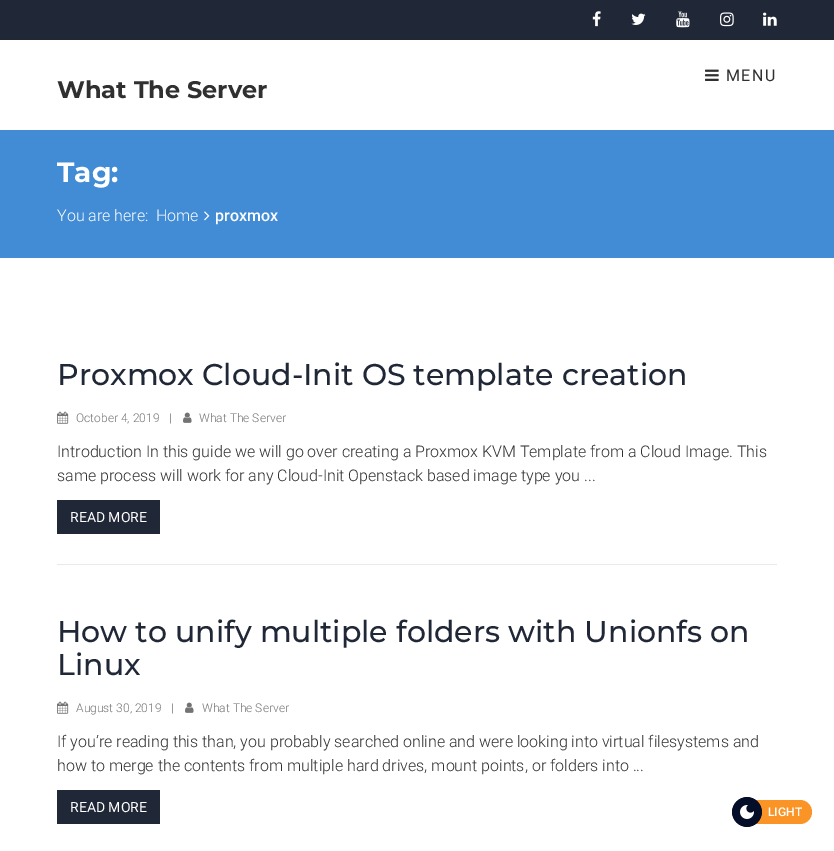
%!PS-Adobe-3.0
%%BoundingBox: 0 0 834 851
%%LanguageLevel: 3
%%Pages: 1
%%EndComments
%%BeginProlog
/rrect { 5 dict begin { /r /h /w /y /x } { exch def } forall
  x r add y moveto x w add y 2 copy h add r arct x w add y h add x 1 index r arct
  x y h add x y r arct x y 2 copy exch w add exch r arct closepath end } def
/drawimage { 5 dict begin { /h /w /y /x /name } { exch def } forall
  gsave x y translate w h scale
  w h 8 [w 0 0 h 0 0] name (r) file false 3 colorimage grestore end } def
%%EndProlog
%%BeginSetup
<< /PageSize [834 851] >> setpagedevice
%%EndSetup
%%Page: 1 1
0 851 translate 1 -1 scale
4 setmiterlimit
1 setgray
0 0 834 851 rectfill
0.125 0.153 0.212 setrgbcolor
0 0 834 40 rectfill
(images/1.raw) 592 11 9 16 drawimage
(images/2.raw) 631 13 15 12 drawimage
(images/3.raw) 676 11 14 17 drawimage
(images/4.raw) 720 12 14 15 drawimage
(images/5.raw) 763 12 14 14 drawimage
(images/6.raw) 705 69 14 12 drawimage
0.259 0.549 0.839 setrgbcolor
0 130 834 128 rectfill
(images/7.raw) 204 211 6 10 drawimage
0.914 setgray
57 564 720 1 rectfill
(images/8.raw) 57 411 12 13 drawimage
(images/9.raw) 183 412 9 11 drawimage
0.125 0.153 0.212 setrgbcolor
57 500 103 34 rectfill
(images/8.raw) 57 701 12 13 drawimage
(images/9.raw) 185 702 9 11 drawimage
57 790 103 34 rectfill
0.984 0.58 0.149 setrgbcolor
732 800 80 24 12 rrect fill
0.016 0.055 0.161 setrgbcolor
newpath 747 812 15 0 360 arc closepath fill
(images/10.raw) 732 797 30 30 drawimage
/Roboto-Regular [16 0 0 -16 0 0] selectfont
0.188 setgray
726 81 moveto 1.5 0 (MENU) ashow
/Montserrat-Bold [24 0 0 -24 0 0] selectfont
57 98 moveto (What The Server) show
/Montserrat-Bold [28 0 0 -28 0 0] selectfont
1 setgray
57 182 moveto (Tag:) show
/Roboto-Light [16 0 0 -16 0 0] selectfont
57 221 moveto (You are here:) show
156 221 moveto (Home) show
/Roboto-Medium [16 0 0 -16 0 0] selectfont
215 221 moveto (proxmox) show
/Montserrat-Medium [30 0 0 -30 0 0] selectfont
0.125 0.153 0.212 setrgbcolor
57 385 moveto (Proxmox Cloud-Init OS template creation) show
/Roboto-Light [12 0 0 -12 0 0] selectfont
0.451 setgray
76 422 moveto (October 4, 2019) show
169 422 moveto (|) show
199 422 moveto (What The Server) show
/Roboto-Light [16 0 0 -16 0 0] selectfont
0.188 setgray
57 457 moveto (Introduction In this guide we will go over creating a Proxmox KVM Template from a Cloud Image. This) show
57 481 moveto (same process will work for any Cloud-Init Openstack based image type you ...) show
/Roboto-Regular [14 0 0 -14 0 0] selectfont
1 setgray
70 522 moveto (READ MORE) show
/Montserrat-Medium [30 0 0 -30 0 0] selectfont
0.125 0.153 0.212 setrgbcolor
57 642 moveto (How to unify multiple folders with Unionfs on) show
57 675 moveto (Linux) show
/Roboto-Light [12 0 0 -12 0 0] selectfont
0.451 setgray
76 712 moveto (August 30, 2019) show
171 712 moveto (|) show
202 712 moveto (What The Server) show
/Roboto-Light [16 0 0 -16 0 0] selectfont
0.188 setgray
57 747 moveto (If you’re reading this than, you probably searched online and were looking into virtual filesystems and) show
57 771 moveto (how to merge the contents from multiple hard drives, mount points, or folders into ...) show
/Roboto-Regular [14 0 0 -14 0 0] selectfont
1 setgray
70 812 moveto (READ MORE) show
/Roboto-Medium [12 0 0 -12 0 0] selectfont
768 816 moveto (LIGHT) show
showpage
%%EOF
